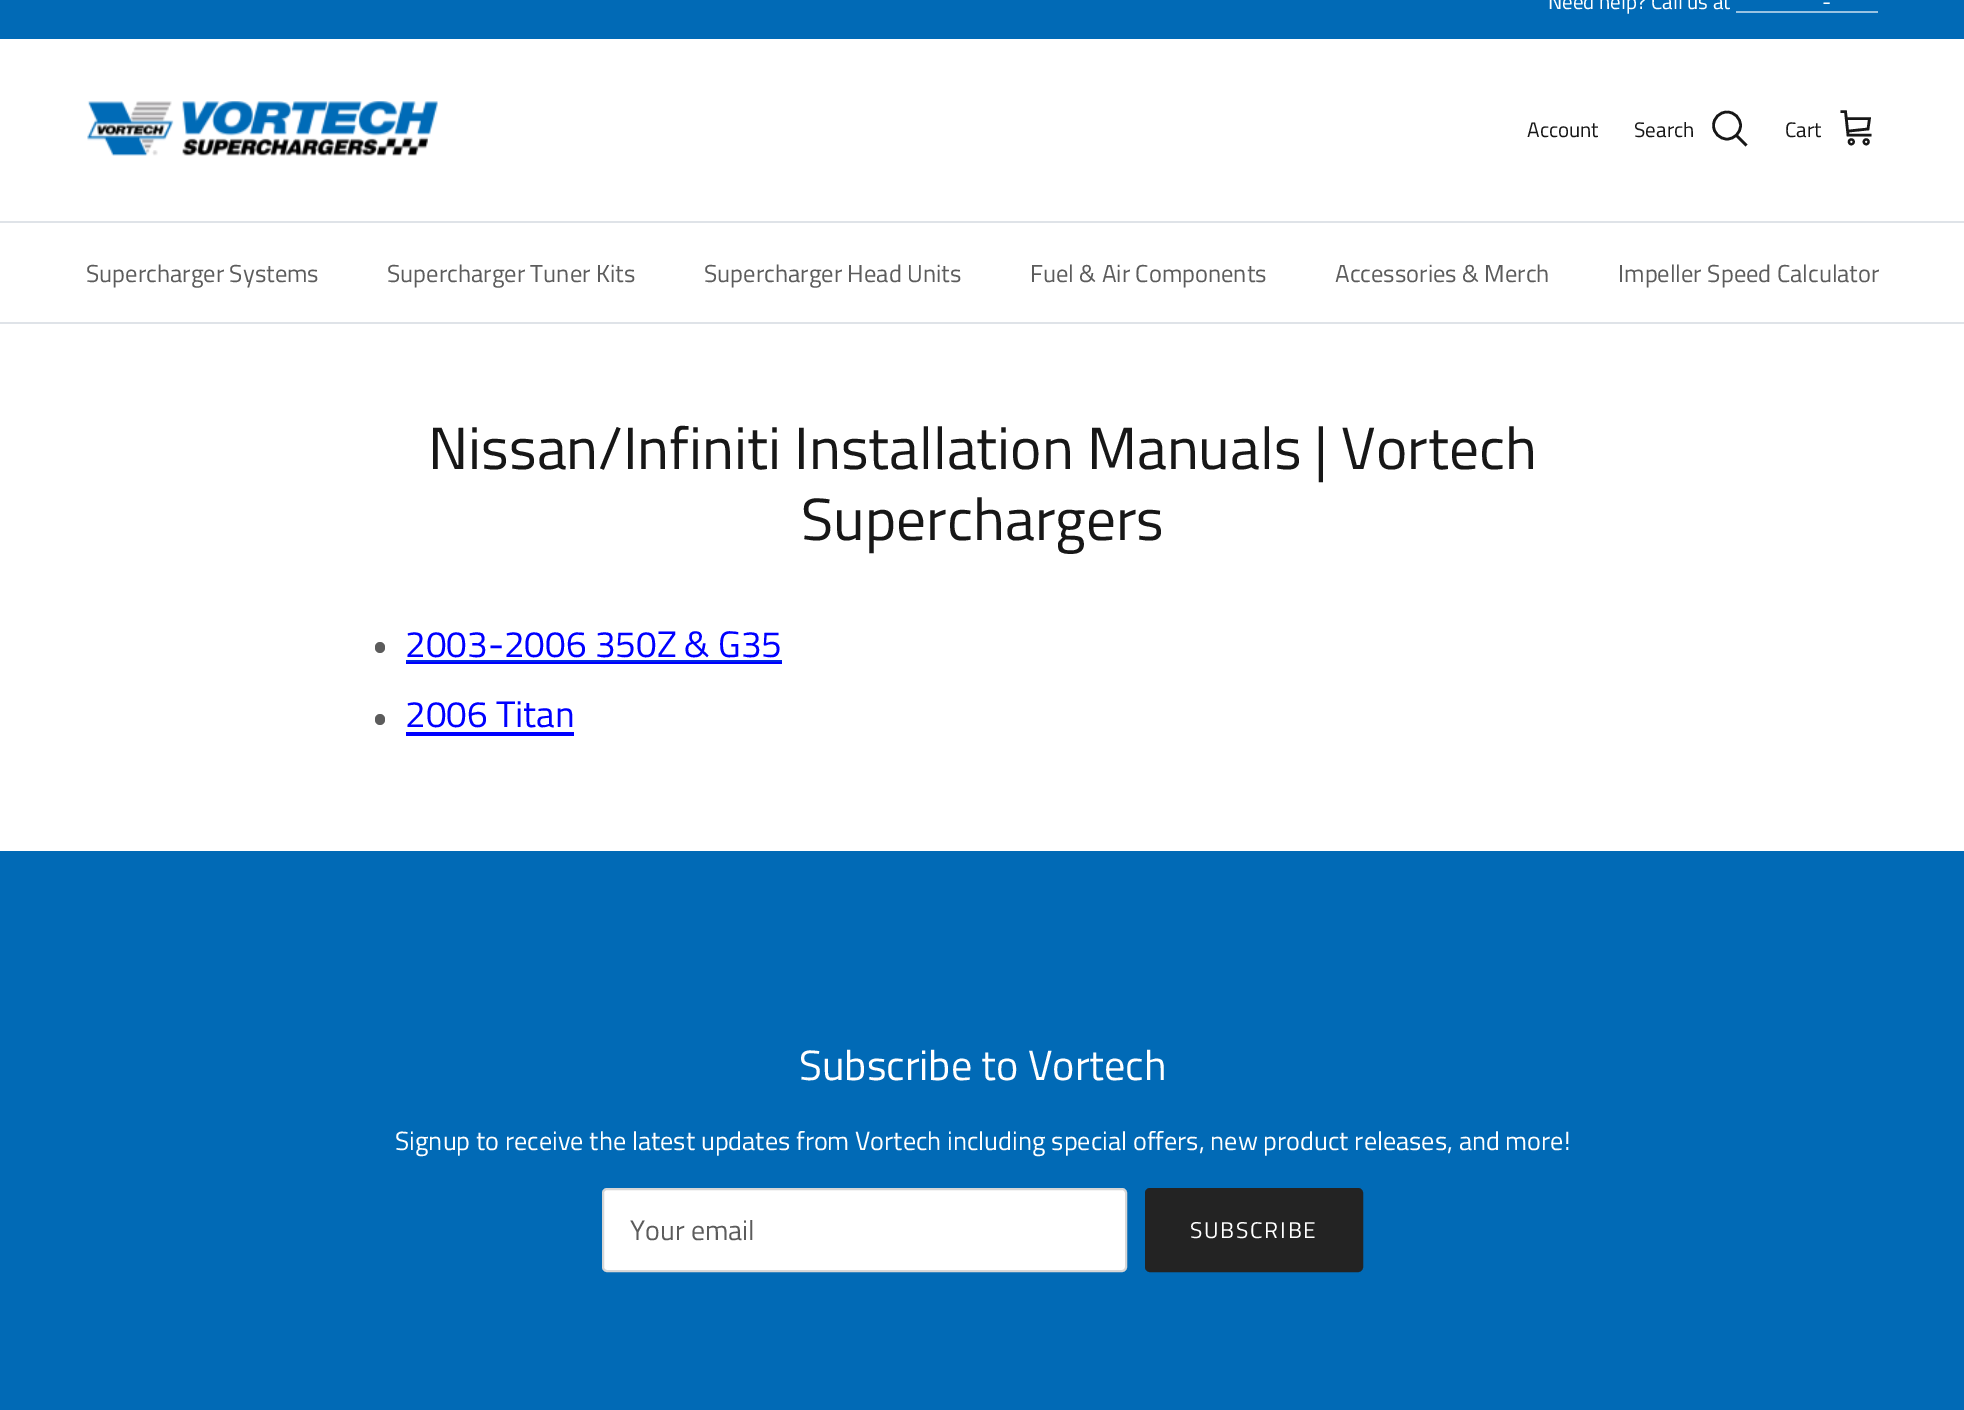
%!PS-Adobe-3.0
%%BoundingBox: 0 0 1964 1410
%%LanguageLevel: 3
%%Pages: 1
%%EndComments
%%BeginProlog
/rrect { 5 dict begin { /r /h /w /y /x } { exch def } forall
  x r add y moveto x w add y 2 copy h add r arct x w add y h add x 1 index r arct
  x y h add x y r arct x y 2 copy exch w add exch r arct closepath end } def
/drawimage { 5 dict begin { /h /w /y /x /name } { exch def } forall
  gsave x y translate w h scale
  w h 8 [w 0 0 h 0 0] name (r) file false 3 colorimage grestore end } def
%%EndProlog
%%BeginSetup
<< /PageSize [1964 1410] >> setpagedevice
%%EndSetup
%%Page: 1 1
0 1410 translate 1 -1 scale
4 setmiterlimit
1 setgray
0 0 1964 1410 rectfill
0.004 0.416 0.714 setrgbcolor
0 0 1964 39 rectfill
0.6 0.765 0.886 setrgbcolor
1736 11 142 2 rectfill
0.875 0.89 0.91 setrgbcolor
0 221 1964 2 rectfill
(images/1.raw) 87 101 351 55 drawimage
0.09 setgray
2.6 setlinewidth
newpath 1727 125.5 13.5 0 360 arc closepath stroke
2 setlinecap
newpath 1737.5 136.5 moveto 1745.5 144.5 lineto stroke
newpath 1842 111.5 moveto 1845.5 111.5 lineto 1848 135 lineto 1870 135 lineto 1846.5 118.5 moveto 1869.5 118.5 lineto 1868 129 lineto 1849 131 lineto stroke
2.2 setlinewidth
0 setlinecap
newpath 1851.3 141.8 2.4 0 360 arc closepath stroke
newpath 1866.2 141.8 2.4 0 360 arc closepath stroke
0.875 0.89 0.91 setrgbcolor
0 322 1964 2 rectfill
0.361 setgray
375 642 10 11 5 rrect fill
0 0 1 setrgbcolor
406 662 376 2 rectfill
0 0.165 0.886 setrgbcolor
406 660 376 2 rectfill
0.361 setgray
375 714 10 11 5 rrect fill
0 0 1 setrgbcolor
406 732 168 4 rectfill
0.004 0.416 0.714 setrgbcolor
0 851 1964 559 rectfill
1 setgray
603 1189 523 82 4 rrect gsave fill grestore
0.839 setgray
2 setlinewidth
stroke
0.137 setgray
1146 1189 216 82 4 rrect gsave fill grestore
stroke
/TitilliumWeb-Regular [21 0 0 -21 0 0] selectfont
1 setgray
1548 9 moveto (Need help? Call us at) show
1822 9 moveto (-) show
0.09 setgray
1527 137 moveto (Account) show
1634 137 moveto (Search) show
1785 137 moveto (Cart) show
/TitilliumWeb-Regular [24.5 0 0 -24.5 0 0] selectfont
0.361 setgray
86 282 moveto (Supercharger Systems) show
387 282 moveto (Supercharger Tuner Kits) show
704 282 moveto (Supercharger Head Units) show
1030 282 moveto (Fuel & Air Components) show
1335 282 moveto (Accessories & Merch) show
1618 282 moveto (Impeller Speed Calculator) show
/TitilliumWeb-Regular [59.5 0 0 -59.5 0 0] selectfont
0.09 setgray
428 469 moveto (Nissan/Infiniti Installation Manuals | Vortech) show
801 540 moveto (Superchargers) show
/TitilliumWeb-Regular [36.9 0 0 -36.9 0 0] selectfont
0 0 1 setrgbcolor
405 657 moveto (2003-2006 350Z & G35) show
405 727 moveto (2006 Titan) show
/TitilliumWeb-Regular [42.25 0 0 -42.25 0 0] selectfont
1 setgray
799 1080 moveto (Subscribe to Vortech) show
/TitilliumWeb-Regular [26.25 0 0 -26.25 0 0] selectfont
395 1150 moveto (Signup to receive the latest updates from Vortech including special offers, new product releases, and more!) show
/TitilliumWeb-Regular [28 0 0 -28 0 0] selectfont
0.361 setgray
630 1240 moveto (Your email) show
/TitilliumWeb-Regular [22.75 0 0 -22.75 0 0] selectfont
1 setgray
1190 1238 moveto 1.75 0 (SUBSCRIBE) ashow
showpage
%%EOF
